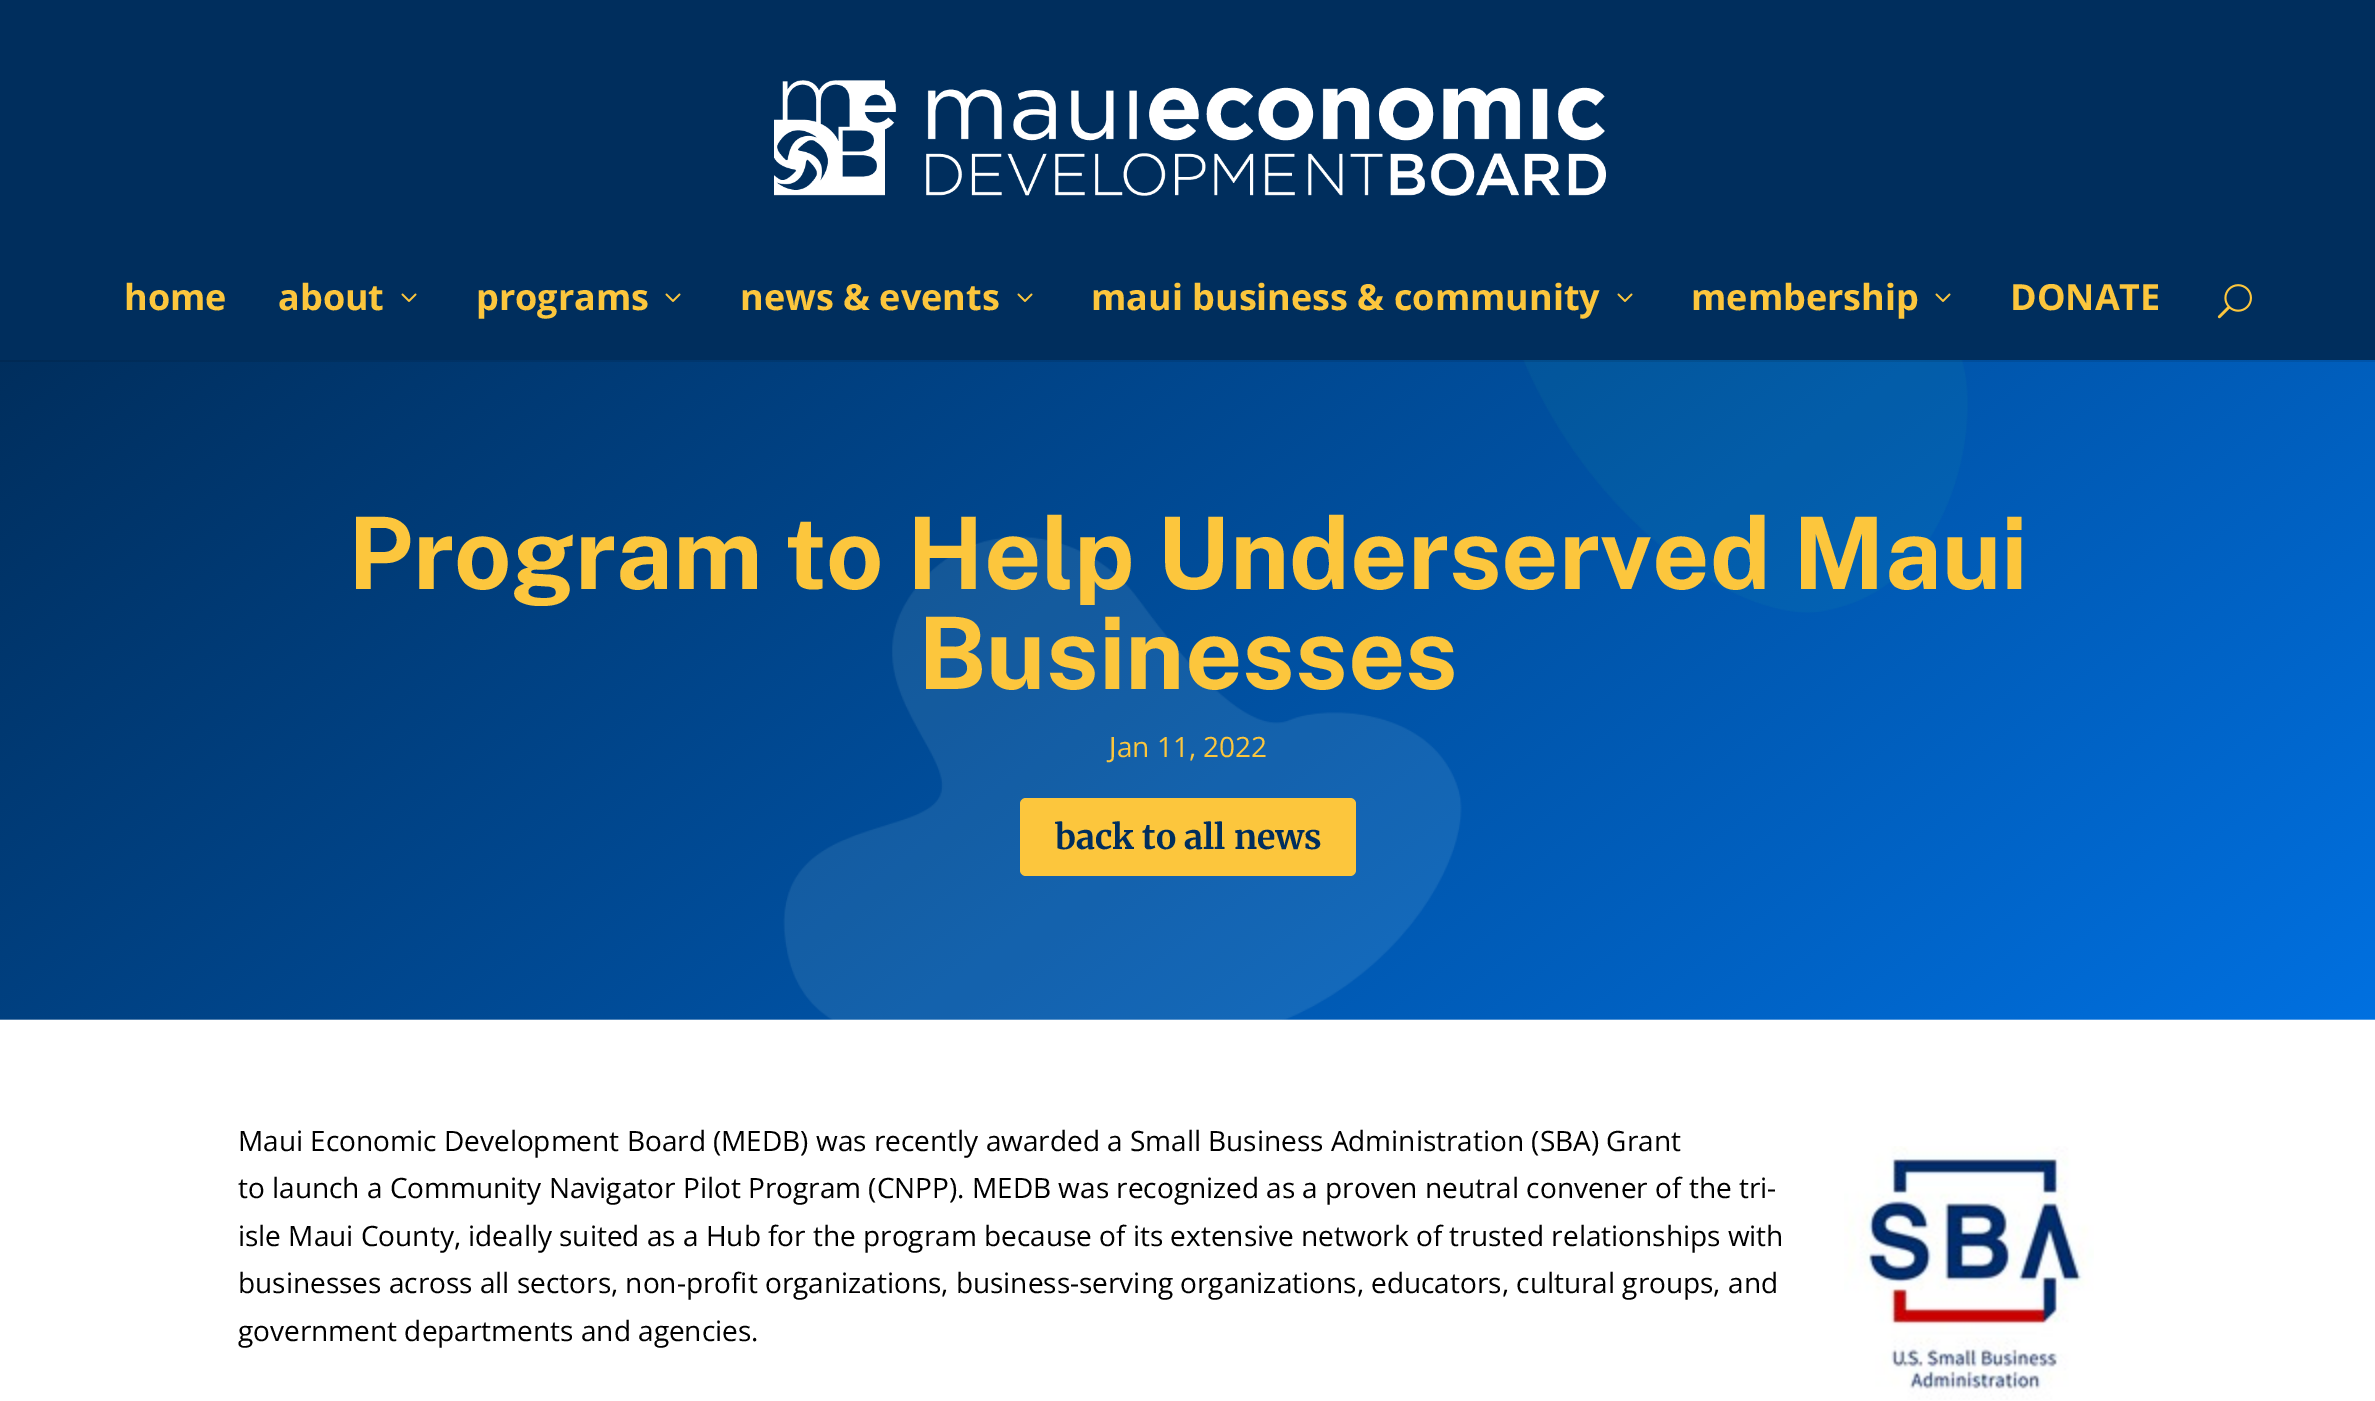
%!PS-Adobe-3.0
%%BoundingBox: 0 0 2375 1401
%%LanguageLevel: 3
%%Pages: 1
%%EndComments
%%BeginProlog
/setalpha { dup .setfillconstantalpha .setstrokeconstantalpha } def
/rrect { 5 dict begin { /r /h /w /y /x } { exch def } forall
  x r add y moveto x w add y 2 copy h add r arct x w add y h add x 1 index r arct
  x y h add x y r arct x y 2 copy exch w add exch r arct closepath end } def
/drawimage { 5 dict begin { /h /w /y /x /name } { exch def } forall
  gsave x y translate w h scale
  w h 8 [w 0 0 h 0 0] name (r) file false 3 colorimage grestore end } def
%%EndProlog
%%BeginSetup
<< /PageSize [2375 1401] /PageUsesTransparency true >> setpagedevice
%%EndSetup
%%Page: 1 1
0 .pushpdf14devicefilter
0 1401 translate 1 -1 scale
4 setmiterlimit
1 setgray
0 0 2375 1401 rectfill
(images/4.raw) 0 360 2375 660 drawimage
0.1 setalpha
0 setgray
0 360 2375 2 rectfill
1 setalpha
0 0.18 0.365 setrgbcolor
0 0 2375 360 rectfill
(images/1.raw) 774 80 832 116 drawimage
(images/2.raw) 401 293 16 9 drawimage
(images/2.raw) 665 293 16 9 drawimage
(images/2.raw) 1017 293 16 9 drawimage
(images/2.raw) 1617 293 16 9 drawimage
(images/2.raw) 1935 293 16 9 drawimage
(images/3.raw) 2217 284 35 35 drawimage
0.988 0.776 0.239 setrgbcolor
1020 798 336 78 6 rrect fill
(images/5.raw) 1844 1146 250 254 drawimage
/OpenSans-Bold [36 0 0 -36 0 0] selectfont
124 310 moveto (home) show
278 310 moveto (about) show
476 310 moveto (programs) show
740 310 moveto (news & events) show
1091 310 moveto (maui business & community) show
1691 310 moveto (membership) show
2010 310 moveto (DONATE) show
/PublicSans-Bold [100 0 0 -100 0 0] selectfont
348 589 moveto (Program to Help Underserved Maui) show
918 689 moveto (Businesses) show
/OpenSans-Regular [28 0 0 -28 0 0] selectfont
1109 757 moveto (Jan 11, 2022) show
/Merriweather-Bold [34 0 0 -34 0 0] selectfont
0 0.18 0.365 setrgbcolor
1055 849 moveto (back to all news) show
/OpenSans-Regular [28 0 0 -28 0 0] selectfont
0 setgray
238 1151 moveto (Maui Economic Development Board \(MEDB\) was recently awarded a Small Business Administration \(SBA\) Grant) show
238 1198 moveto (to launch a Community Navigator Pilot Program \(CNPP\). MEDB was recognized as a proven neutral convener of the tri-) show
238 1246 moveto (isle Maui County, ideally suited as a Hub for the program because of its extensive network of trusted relationships with) show
238 1293 moveto (businesses across all sectors, non-profit organizations, business-serving organizations, educators, cultural groups, and) show
238 1341 moveto (government departments and agencies.) show
.poppdf14devicefilter showpage
%%EOF
